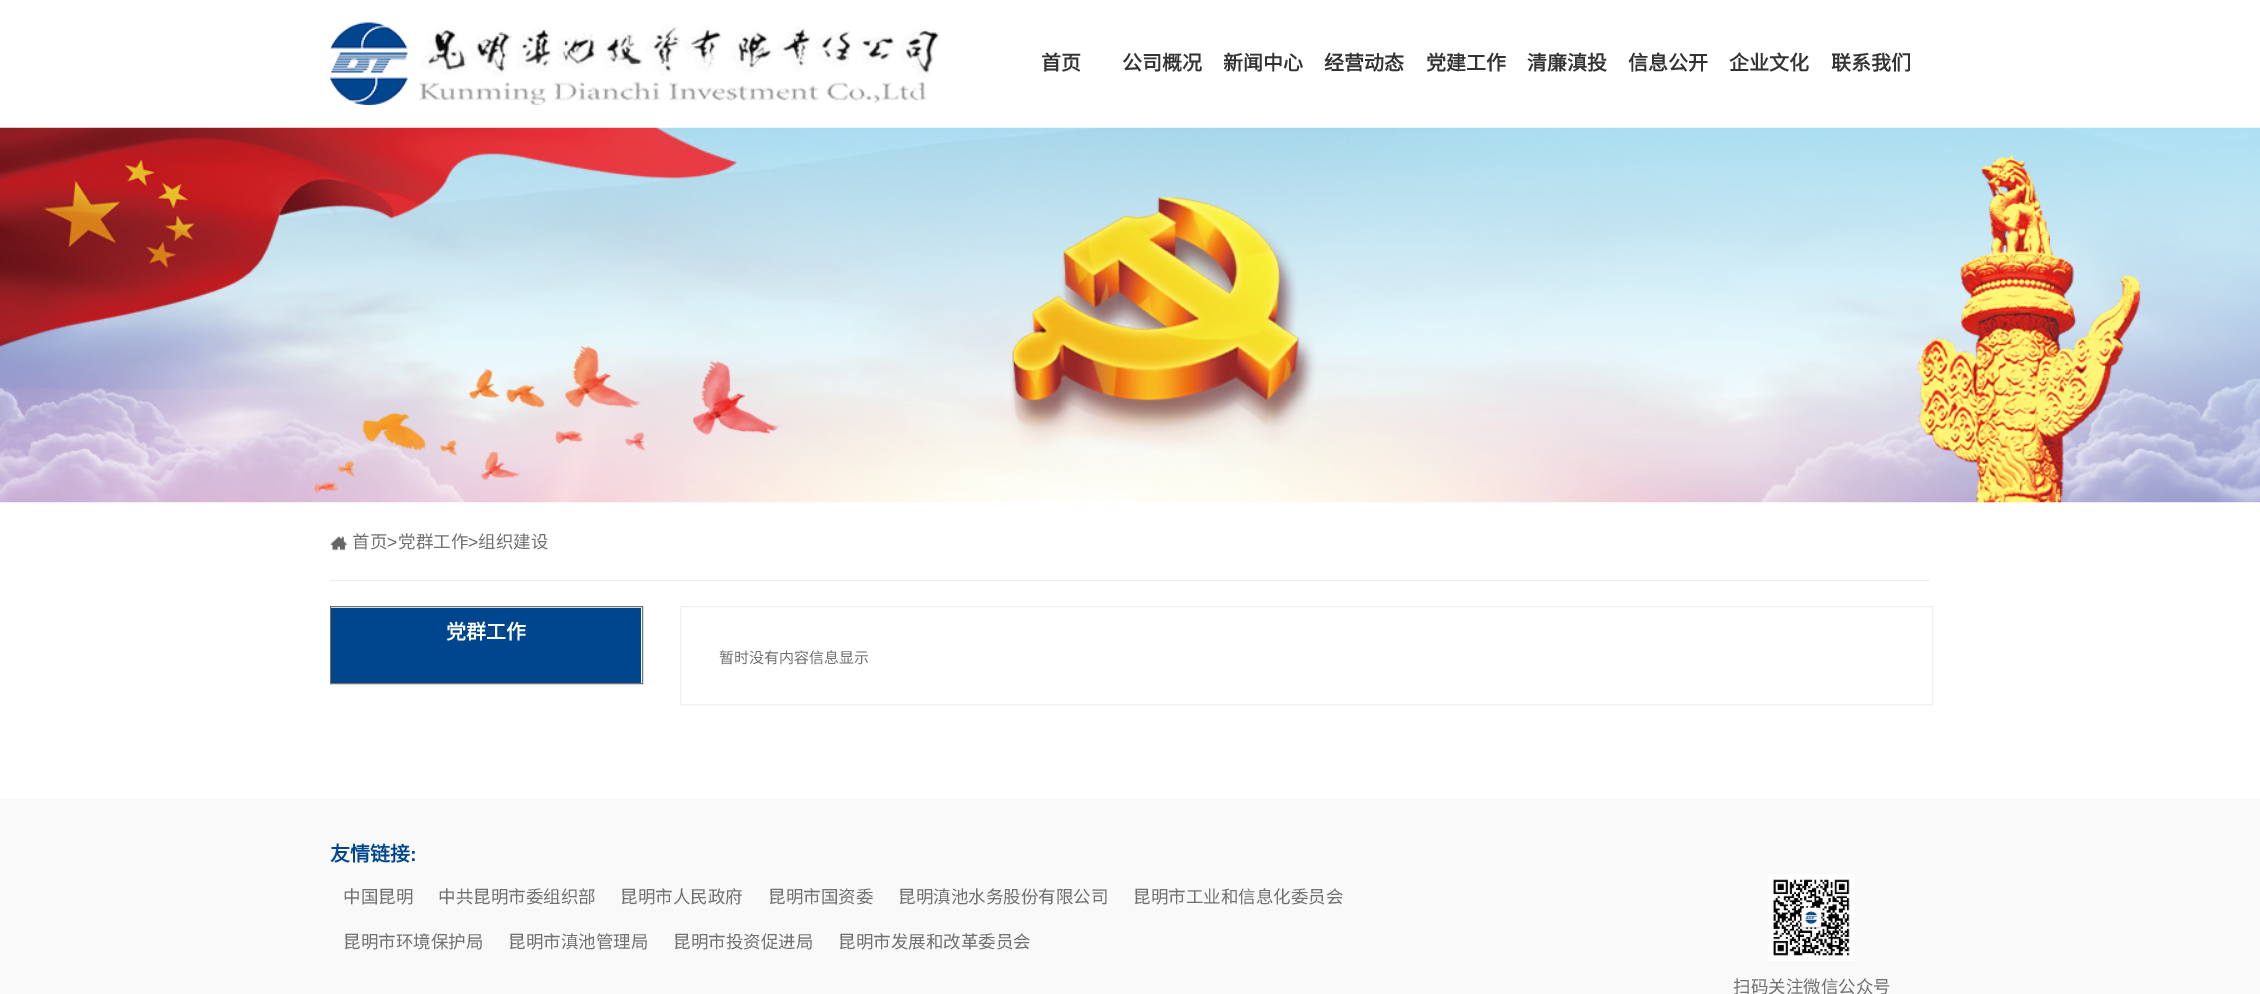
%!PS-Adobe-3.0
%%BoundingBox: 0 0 2260 994
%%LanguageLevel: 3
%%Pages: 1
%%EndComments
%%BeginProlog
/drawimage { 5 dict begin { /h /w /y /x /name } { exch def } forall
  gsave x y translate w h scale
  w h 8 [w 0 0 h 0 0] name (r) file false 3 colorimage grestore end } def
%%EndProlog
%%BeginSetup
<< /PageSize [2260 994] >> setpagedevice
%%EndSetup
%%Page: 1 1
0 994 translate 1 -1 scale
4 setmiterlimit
1 setgray
0 0 2260 994 rectfill
(images/1.raw) 330 22 610 83 drawimage
(images/2.raw) 0 127 2260 376 drawimage
0.933 setgray
330 580 1600 1 rectfill
(images/3.raw) 330 536 18 15 drawimage
0.439 setgray
330.5 606.5 312 77 rectstroke
0 0.275 0.557 setrgbcolor
331 608 310 75 rectfill
0.941 setgray
680.5 606.5 1252 98 rectstroke
0.976 setgray
0 799 2260 195 rectfill
(images/4.raw) 1768 874 87 87 drawimage
/NotoSansCJKSC-Bold [20 0 0 -20 0 0] selectfont
0.2 setgray
1041 70 moveto (首页) show
1122 70 moveto (公司概况) show
1223 70 moveto (新闻中心) show
1324 70 moveto (经营动态) show
1426 70 moveto (党建工作) show
1527 70 moveto (清廉滇投) show
1628 70 moveto (信息公开) show
1729 70 moveto (企业文化) show
1831 70 moveto (联系我们) show
/NotoSansCJKSC-Regular [17.5 0 0 -17.5 0 0] selectfont
0.439 setgray
352 548 moveto (首页) show
/LiberationSans-Regular [17.5 0 0 -17.5 0 0] selectfont
0.4 setgray
387 548 moveto (>) show
/NotoSansCJKSC-Regular [17.5 0 0 -17.5 0 0] selectfont
0.439 setgray
398 548 moveto (党群工作) show
/LiberationSans-Regular [17.5 0 0 -17.5 0 0] selectfont
0.4 setgray
468 548 moveto (>) show
/NotoSansCJKSC-Regular [17.5 0 0 -17.5 0 0] selectfont
0.439 setgray
478 548 moveto (组织建设) show
/NotoSansCJKSC-Bold [20 0 0 -20 0 0] selectfont
1 setgray
446 639 moveto (党群工作) show
/NotoSansCJKSC-Regular [15 0 0 -15 0 0] selectfont
0.439 setgray
719 663 moveto (暂时没有内容信息显示) show
/NotoSansCJKSC-Bold [20 0 0 -20 0 0] selectfont
0 0.275 0.557 setrgbcolor
330 861 moveto (友情链接) show
/LiberationSans-Bold [20 0 0 -20 0 0] selectfont
410 861 moveto (:) show
/NotoSansCJKSC-Regular [17.5 0 0 -17.5 0 0] selectfont
0.439 setgray
343 903 moveto (中国昆明) show
438 903 moveto (中共昆明市委组织部) show
620 903 moveto (昆明市人民政府) show
768 903 moveto (昆明市国资委) show
898 903 moveto (昆明滇池水务股份有限公司) show
1133 903 moveto (昆明市工业和信息化委员会) show
343 948 moveto (昆明市环境保护局) show
508 948 moveto (昆明市滇池管理局) show
673 948 moveto (昆明市投资促进局) show
838 948 moveto (昆明市发展和改革委员会) show
1733 993 moveto (扫码关注微信公众号) show
showpage
%%EOF
